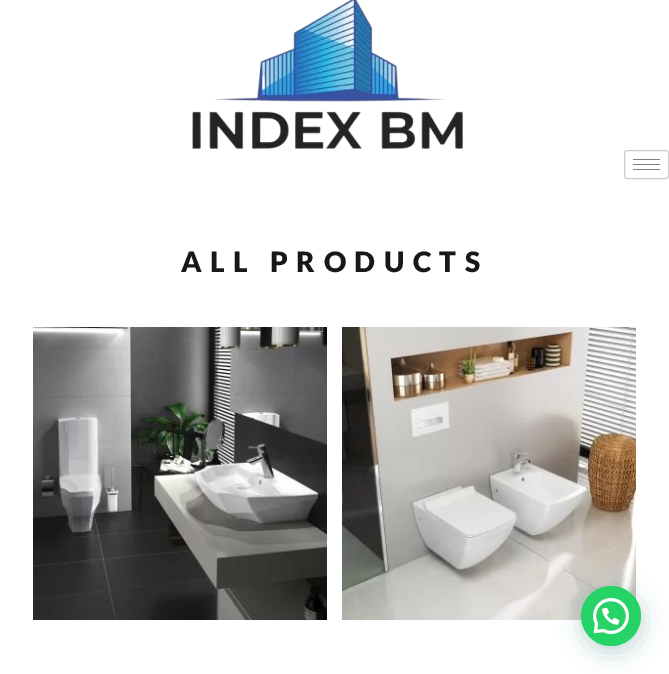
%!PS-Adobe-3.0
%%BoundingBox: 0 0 669 674
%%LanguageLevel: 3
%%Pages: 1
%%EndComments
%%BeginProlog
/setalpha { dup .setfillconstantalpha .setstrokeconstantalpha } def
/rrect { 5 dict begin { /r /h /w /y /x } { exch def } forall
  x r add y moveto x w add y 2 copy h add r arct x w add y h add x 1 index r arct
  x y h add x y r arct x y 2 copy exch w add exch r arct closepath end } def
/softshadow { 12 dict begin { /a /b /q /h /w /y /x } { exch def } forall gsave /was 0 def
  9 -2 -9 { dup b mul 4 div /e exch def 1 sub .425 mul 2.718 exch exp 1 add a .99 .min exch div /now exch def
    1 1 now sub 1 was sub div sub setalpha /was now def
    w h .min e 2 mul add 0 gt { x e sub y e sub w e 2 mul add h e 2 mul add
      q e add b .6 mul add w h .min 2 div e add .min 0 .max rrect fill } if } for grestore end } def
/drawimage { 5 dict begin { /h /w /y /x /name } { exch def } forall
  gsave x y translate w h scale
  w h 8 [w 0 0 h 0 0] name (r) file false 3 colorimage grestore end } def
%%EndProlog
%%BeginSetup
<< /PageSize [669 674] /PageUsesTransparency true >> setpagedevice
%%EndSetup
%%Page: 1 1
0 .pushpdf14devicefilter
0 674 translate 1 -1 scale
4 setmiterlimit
1 setgray
0 0 669 674 rectfill
(images/1.raw) 192 0 271 149 drawimage
0.8 setgray
624.5 150.5 44 28 2.5 rrect stroke
0.502 setgray
633 159 27 1 rectfill
633 164 27 1 rectfill
633 169 27 1 rectfill
(images/2.raw) 33 327 294 293 drawimage
(images/3.raw) 342 327 294 293 drawimage
0.027 0.369 0.329 setrgbcolor
582 592 60 60 30 12 0.24 softshadow
0.145 0.827 0.4 setrgbcolor
newpath 611 616 30 0 360 arc closepath fill
(images/4.raw) 593 598 36 36 drawimage
/Lato-Black [28 0 0 -28 0 0] selectfont
0.094 setgray
181 272 moveto 8.5 0 (ALL PRODUCTS) ashow
.poppdf14devicefilter showpage
%%EOF
